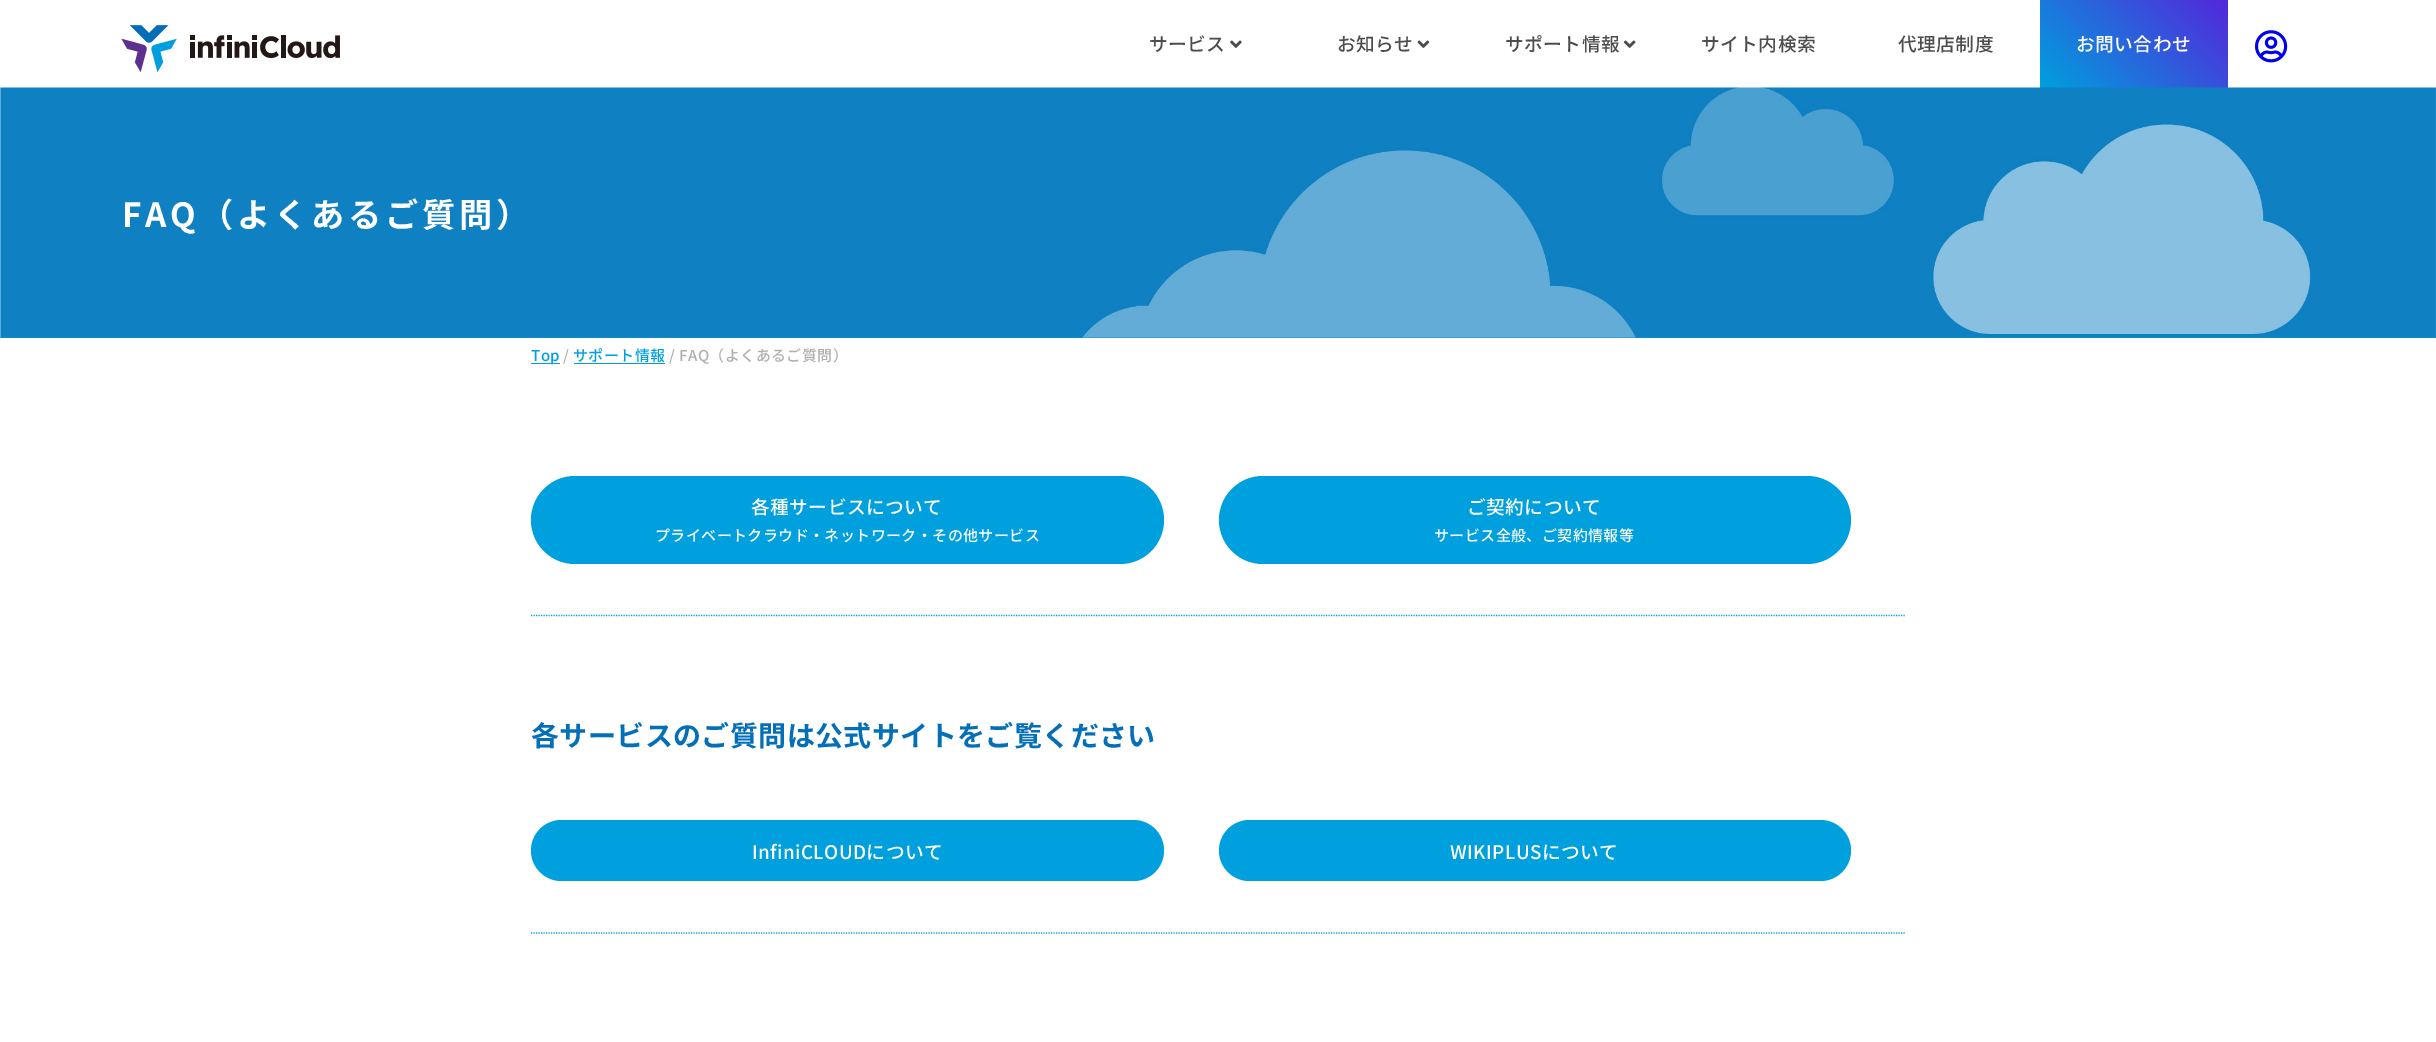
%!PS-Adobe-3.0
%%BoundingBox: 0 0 2436 1042
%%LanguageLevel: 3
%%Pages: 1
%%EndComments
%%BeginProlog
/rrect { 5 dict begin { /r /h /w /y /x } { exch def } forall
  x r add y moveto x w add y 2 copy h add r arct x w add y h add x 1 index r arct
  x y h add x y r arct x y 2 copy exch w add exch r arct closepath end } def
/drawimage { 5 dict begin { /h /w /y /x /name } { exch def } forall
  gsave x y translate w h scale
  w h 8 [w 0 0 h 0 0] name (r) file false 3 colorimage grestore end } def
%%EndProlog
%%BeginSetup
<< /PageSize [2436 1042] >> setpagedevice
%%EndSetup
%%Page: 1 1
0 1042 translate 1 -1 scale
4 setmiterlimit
1 setgray
0 0 2436 1042 rectfill
(images/1.raw) 121 25 219 48 drawimage
(images/2.raw) 1230 40 12 8 drawimage
(images/3.raw) 1417 40 13 8 drawimage
(images/4.raw) 1623 40 13 8 drawimage
gsave newpath 2040 0 moveto 2228 0 lineto 2228 88 lineto 2040 88 lineto closepath clip newpath
<< /ShadingType 2 /ColorSpace /DeviceRGB /Coords [2065 113 2203 -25] /Extend [true true] /Function << /FunctionType 2 /Domain [0 1] /C0 [0 0.627 0.871] /C1 [0.329 0.153 0.855] /N 1 >> >> shfill grestore
(images/5.raw) 2255 30 33 33 drawimage
0 0.627 0.871 setrgbcolor
0 337 2436 1 rectfill
(images/6.raw) 0 87 2436 251 drawimage
531 363 29 1 rectfill
574 363 91 1 rectfill
531 476 633 88 44 rrect fill
1219 476 632 88 44 rrect fill
1.2 setlinewidth
[1.25 1.25] 0 setdash
newpath 531 615.5 moveto 1906 615.5 lineto stroke
531 820 633 61 30.5 rrect fill
1219 820 632 61 30.5 rrect fill
newpath 531 933 moveto 1906 933 lineto stroke
/NotoSansJP-Medium [18.75 0 0 -18.75 0 0] selectfont
0.302 setgray
1149 51 moveto 0.4 0 (サービス) ashow
1337 51 moveto 0.4 0 (お知らせ) ashow
1505 51 moveto 0.4 0 (サポート情報) ashow
1701 51 moveto 0.4 0 (サイト内検索) ashow
1898 51 moveto 0.4 0 (代理店制度) ashow
1 setgray
2076 51 moveto 0.4 0 (お問い合わせ) ashow
/NotoSansJP-Bold [33.25 0 0 -33.25 0 0] selectfont
122 227 moveto 3.75 0 (FAQ（よくあるご質問）) ashow
/NotoSansJP-Medium [15 0 0 -15 0 0] selectfont
0 0.627 0.871 setrgbcolor
531 361 moveto 0.4 0 (Top) ashow
0.69 setgray
563 361 moveto 0.4 0 (/) ashow
0 0.627 0.871 setrgbcolor
573 361 moveto 0.4 0 (サポート情報) ashow
0.69 setgray
669 361 moveto 0.4 0 (/ FAQ（よくあるご質問）) ashow
/NotoSansJP-Medium [18.75 0 0 -18.75 0 0] selectfont
1 setgray
751 514 moveto 0.4 0 (各種サービスについて) ashow
/NotoSansJP-Medium [15 0 0 -15 0 0] selectfont
655 541 moveto 0.4 0 (プライベートクラウド・ネットワーク・その他サービス) ashow
/NotoSansJP-Medium [18.75 0 0 -18.75 0 0] selectfont
1467 514 moveto 0.4 0 (ご契約について) ashow
/NotoSansJP-Medium [15 0 0 -15 0 0] selectfont
1434 541 moveto 0.4 0 (サービス全般、ご契約情報等) ashow
/NotoSansJP-Bold [28 0 0 -28 0 0] selectfont
0.012 0.435 0.722 setrgbcolor
531 746 moveto 0.4 0 (各サービスのご質問は公式サイトをご覧ください) ashow
/NotoSansJP-Medium [18.75 0 0 -18.75 0 0] selectfont
1 setgray
752 859 moveto 0.4 0 (InfiniCLOUDについて) ashow
1450 859 moveto 0.4 0 (WIKIPLUSについて) ashow
showpage
%%EOF
